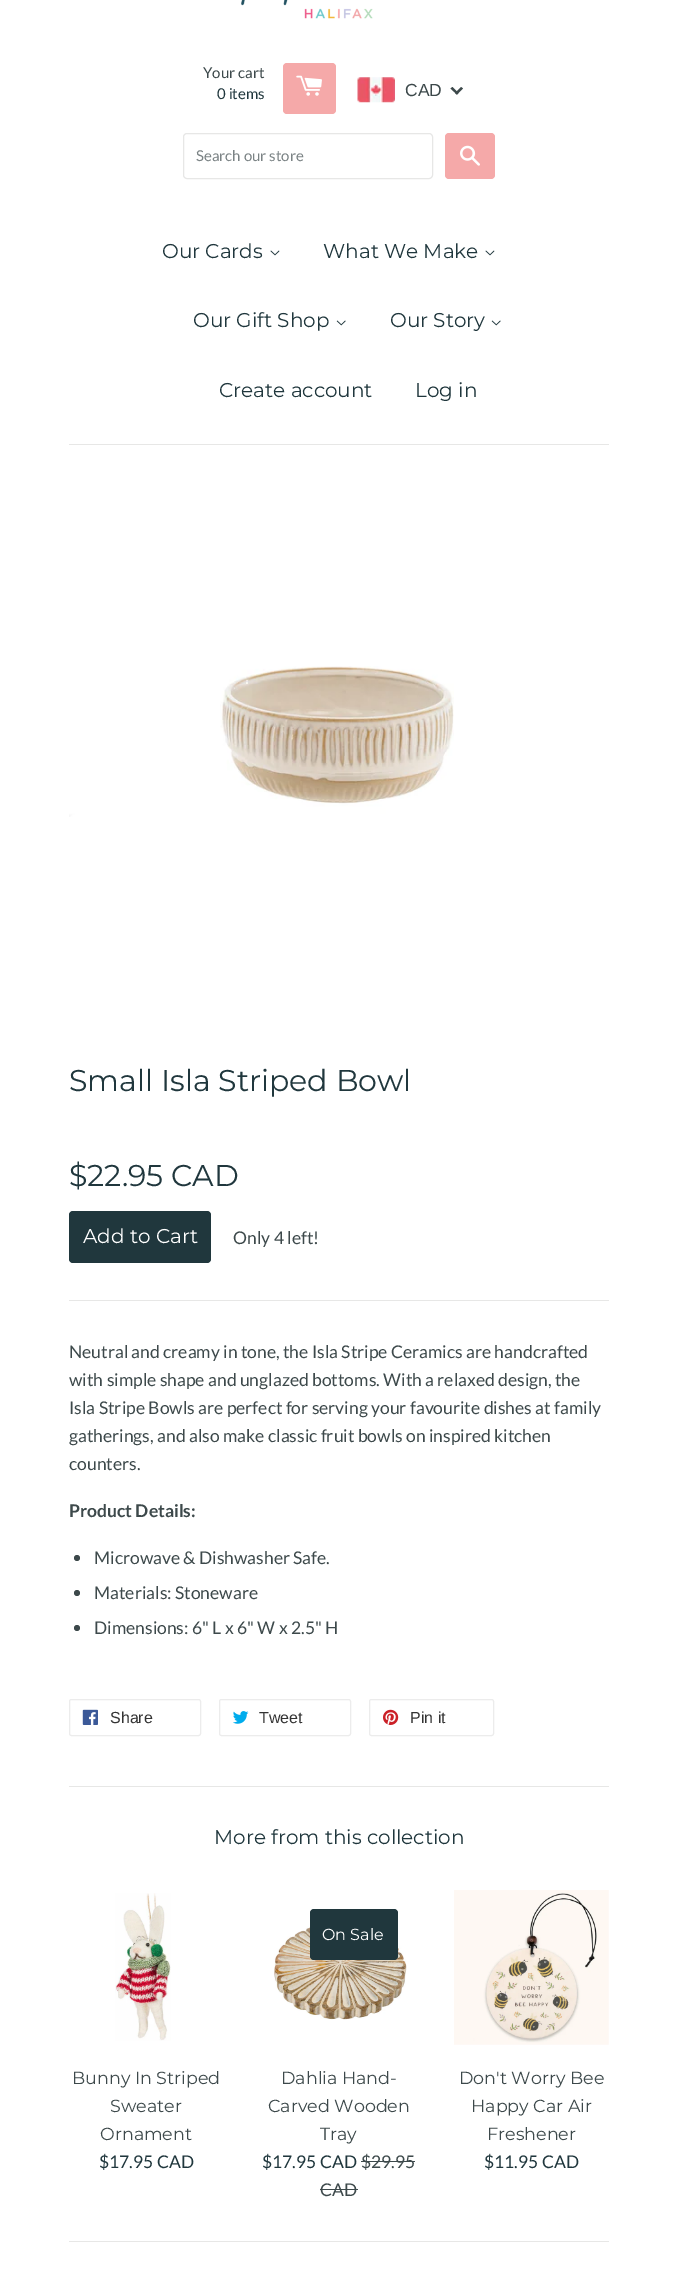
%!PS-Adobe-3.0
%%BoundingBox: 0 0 677 2280
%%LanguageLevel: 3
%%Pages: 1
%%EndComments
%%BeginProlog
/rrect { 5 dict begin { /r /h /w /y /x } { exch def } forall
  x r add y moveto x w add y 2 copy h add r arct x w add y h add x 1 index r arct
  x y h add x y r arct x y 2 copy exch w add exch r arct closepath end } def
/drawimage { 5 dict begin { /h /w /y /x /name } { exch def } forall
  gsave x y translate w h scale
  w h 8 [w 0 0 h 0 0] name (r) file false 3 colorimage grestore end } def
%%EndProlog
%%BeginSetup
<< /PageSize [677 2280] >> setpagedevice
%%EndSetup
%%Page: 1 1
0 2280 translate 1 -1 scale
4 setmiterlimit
1 setgray
0 0 677 2280 rectfill
(images/1.raw) 241 0 132 19 drawimage
0.961 0.663 0.663 setrgbcolor
283 63 53 51 4 rrect fill
(images/2.raw) 296 75 26 21 drawimage
(images/3.raw) 357 77 38 26 drawimage
0.239 0.286 0.294 setrgbcolor
newpath 461 87 moveto 463 88.5 lineto 457 94.5 lineto 455 93 lineto closepath fill
newpath 452.5 87 moveto 458.5 93 lineto 457 94.5 lineto 450.5 88.5 lineto closepath fill
0.906 0.906 0.902 setrgbcolor
183.5 133.5 249 45 3.5 rrect stroke
0.961 0.663 0.663 setrgbcolor
445 133 50 46 4 rrect fill
(images/4.raw) 460 145 20 21 drawimage
(images/5.raw) 270 250 10 6 drawimage
(images/5.raw) 485 250 10 6 drawimage
(images/6.raw) 336 320 10 6 drawimage
(images/6.raw) 491 320 10 6 drawimage
0.906 0.906 0.902 setrgbcolor
69 444 540 1 rectfill
(images/7.raw) 69 666 385 151 drawimage
0.125 0.216 0.239 setrgbcolor
69 1211 142 52 4 rrect fill
0.906 0.906 0.902 setrgbcolor
69 1300 540 1 rectfill
0.239 0.286 0.294 setrgbcolor
newpath 77 1558 3 0 360 arc closepath fill
newpath 77 1593 3 0 360 arc closepath fill
newpath 77 1628 3 0 360 arc closepath fill
0.925 setgray
69.5 1699.5 131 36 2 rrect stroke
(images/8.raw) 82 1709 16 16 drawimage
219.5 1699.5 131 36 2 rrect stroke
(images/9.raw) 233 1711 16 13 drawimage
369.5 1699.5 124 36 2 rrect stroke
(images/10.raw) 383 1709 16 16 drawimage
0.906 0.906 0.902 setrgbcolor
69 1786 540 1 rectfill
(images/11.raw) 115 1893 56 148 drawimage
(images/12.raw) 274 1922 133 98 drawimage
0.125 0.216 0.239 setrgbcolor
310 1909 88 51 4 rrect fill
0.239 0.286 0.294 setrgbcolor
361 2161 54 1 rectfill
320 2189 38 1 rectfill
(images/13.raw) 454 1890 155 155 drawimage
0.906 0.906 0.902 setrgbcolor
69 2241 540 1 rectfill
/Lato-Regular [15 0 0 -15 0 0] selectfont
0.239 0.286 0.294 setrgbcolor
203 78 moveto (Your cart) show
0.125 0.216 0.239 setrgbcolor
217 99 moveto (0 items) show
/LiberationSans-Regular [17.5 0 0 -17.5 0 0] selectfont
0.239 0.286 0.294 setrgbcolor
405 96 moveto (CAD) show
/Lato-Regular [15 0 0 -15 0 0] selectfont
0.482 0.514 0.522 setrgbcolor
196 161 moveto (Search our store) show
/Montserrat-Thin [20 0 0 -20 0 0] selectfont
0.125 0.216 0.239 setrgbcolor
162 258 moveto (Our Cards) show
323 258 moveto (What We Make) show
193 327 moveto (Our Gift Shop) show
390 327 moveto (Our Story) show
219 397 moveto (Create account) show
415 397 moveto (Log in) show
/Montserrat-Thin [30 0 0 -30 0 0] selectfont
69 1091 moveto (Small Isla Striped Bowl) show
69 1186 moveto ($22.95 CAD) show
/Montserrat-Thin [20 0 0 -20 0 0] selectfont
1 setgray
83 1243 moveto (Add to Cart) show
/Lato-Regular [17.5 0 0 -17.5 0 0] selectfont
0.239 0.286 0.294 setrgbcolor
233 1244 moveto (Only 4 left!) show
69 1358 moveto (Neutral and creamy in tone, the Isla Stripe Ceramics are handcrafted) show
69 1386 moveto (with simple shape and unglazed bottoms. With a relaxed design, the) show
69 1414 moveto (Isla Stripe Bowls are perfect for serving your favourite dishes at family) show
69 1442 moveto (gatherings, and also make classic fruit bowls on inspired kitchen) show
69 1470 moveto (counters.) show
/Lato-Bold [17.5 0 0 -17.5 0 0] selectfont
69 1517 moveto (Product Details:) show
/Lato-Regular [17.5 0 0 -17.5 0 0] selectfont
94 1564 moveto (Microwave & Dishwasher Safe.) show
94 1599 moveto (Materials: Stoneware) show
94 1634 moveto (Dimensions: 6" L x 6" W x 2.5" H) show
/LiberationSans-Regular [16 0 0 -16 0 0] selectfont
0.2 setgray
110 1723 moveto (Share) show
259 1723 moveto (Tweet) show
410 1723 moveto (Pin it) show
/Montserrat-Thin [20 0 0 -20 0 0] selectfont
0.125 0.216 0.239 setrgbcolor
214 1844 moveto (More from this collection) show
/Montserrat-Thin [17.5 0 0 -17.5 0 0] selectfont
0.239 0.286 0.294 setrgbcolor
72 2084 moveto (Bunny In Striped) show
110 2112 moveto (Sweater) show
100 2140 moveto (Ornament) show
/Lato-Regular [17.5 0 0 -17.5 0 0] selectfont
0.125 0.216 0.239 setrgbcolor
99 2168 moveto ($17.95 CAD) show
/Montserrat-Thin [16 0 0 -16 0 0] selectfont
1 setgray
322 1940 moveto (On Sale) show
/Montserrat-Thin [17.5 0 0 -17.5 0 0] selectfont
0.239 0.286 0.294 setrgbcolor
281 2084 moveto (Dahlia Hand-) show
268 2112 moveto (Carved Wooden) show
320 2140 moveto (Tray) show
/Lato-Regular [17.5 0 0 -17.5 0 0] selectfont
0.125 0.216 0.239 setrgbcolor
262 2168 moveto ($17.95 CAD) show
0.239 0.286 0.294 setrgbcolor
361 2168 moveto ($29.95) show
320 2196 moveto (CAD) show
/Montserrat-Thin [17.5 0 0 -17.5 0 0] selectfont
459 2084 moveto (Don't Worry Bee) show
471 2112 moveto (Happy Car Air) show
487 2140 moveto (Freshener) show
/Lato-Regular [17.5 0 0 -17.5 0 0] selectfont
0.125 0.216 0.239 setrgbcolor
484 2168 moveto ($11.95 CAD) show
showpage
%%EOF
